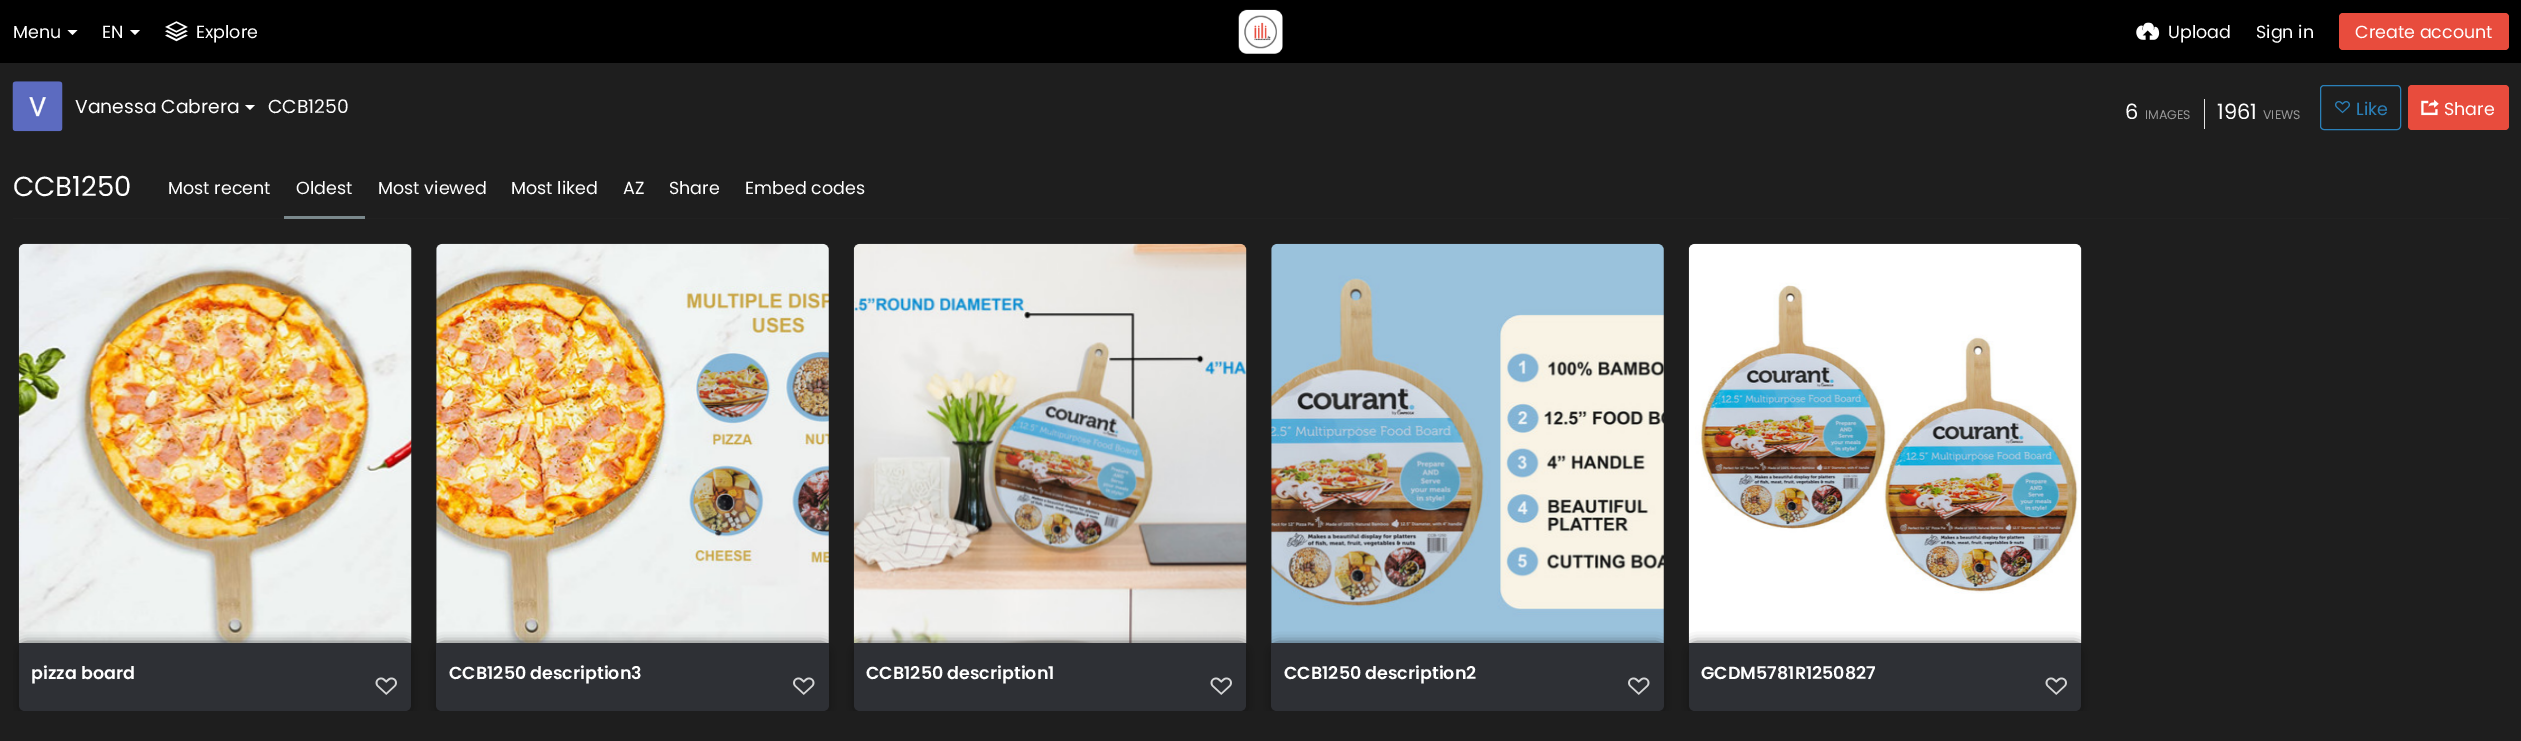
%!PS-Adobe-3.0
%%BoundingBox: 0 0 2521 741
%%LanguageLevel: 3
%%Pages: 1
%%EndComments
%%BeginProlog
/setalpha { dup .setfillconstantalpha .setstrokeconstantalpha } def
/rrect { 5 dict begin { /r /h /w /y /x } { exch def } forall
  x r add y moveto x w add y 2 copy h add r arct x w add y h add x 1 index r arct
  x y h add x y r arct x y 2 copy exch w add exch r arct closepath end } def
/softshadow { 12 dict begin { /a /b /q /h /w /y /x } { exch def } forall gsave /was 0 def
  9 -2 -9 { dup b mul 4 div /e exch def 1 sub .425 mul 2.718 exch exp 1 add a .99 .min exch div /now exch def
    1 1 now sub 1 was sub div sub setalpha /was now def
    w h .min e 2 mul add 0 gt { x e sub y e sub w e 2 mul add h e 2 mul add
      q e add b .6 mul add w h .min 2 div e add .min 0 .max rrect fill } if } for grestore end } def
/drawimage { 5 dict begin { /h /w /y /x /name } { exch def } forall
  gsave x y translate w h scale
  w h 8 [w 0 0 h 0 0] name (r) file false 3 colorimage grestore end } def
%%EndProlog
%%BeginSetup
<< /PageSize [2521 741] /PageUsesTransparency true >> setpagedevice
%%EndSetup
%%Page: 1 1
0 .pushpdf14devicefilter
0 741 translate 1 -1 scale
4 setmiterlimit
0.118 setgray
0 0 2521 741 rectfill
0 setgray
0 0 2521 63 rectfill
1 setgray
newpath 67.5 30 moveto 77.5 30 lineto 72.5 35 lineto closepath fill
newpath 130 30 moveto 140 30 lineto 135 35 lineto closepath fill
(images/1.raw) 165 21 23 21 drawimage
(images/2.raw) 1238 9 45 45 drawimage
(images/3.raw) 2136 22 24 18 drawimage
0.91 0.298 0.239 setrgbcolor
2339 13 170 37 4 rrect fill
(images/4.raw) 12 81 51 51 drawimage
1 setgray
newpath 245 105 moveto 255 105 lineto 250 110 lineto closepath fill
0.898 setgray
2204 99 1 30 rectfill
0.165 0.502 0.725 setrgbcolor
2320.5 85.5 80 44 3.5 rrect stroke
(images/5.raw) 2335 101 15 13 drawimage
0.91 0.298 0.239 setrgbcolor
2408 85 101 45 4 rrect fill
(images/6.raw) 2421 99 18 17 drawimage
0.129 setgray
13 218 2496 1 rectfill
0.478 0.533 0.549 setrgbcolor
284 216 81 3 rectfill
(images/7.raw) 18 243 394 401 drawimage
gsave
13 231 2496 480 rectclip
0.082 setgray
18 645 395 71 8 6 1 softshadow
grestore
0.18 0.188 0.208 setrgbcolor
newpath 19 643 moveto 411 643 lineto 411 705 lineto 411 708.5 408.5 711 405 711 curveto 25 711 lineto 21.5 711 19 708.5 19 705 curveto closepath fill
(images/8.raw) 375 677 22 18 drawimage
0.129 setgray
436 244 393 405 6 rrect fill
(images/9.raw) 436 243 393 400 drawimage
gsave
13 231 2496 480 rectclip
0.082 setgray
435 645 395 71 8 6 1 softshadow
grestore
0.18 0.188 0.208 setrgbcolor
newpath 436 643 moveto 829 643 lineto 829 705 lineto 829 708.5 826.5 711 823 711 curveto 442 711 lineto 438.5 711 436 708.5 436 705 curveto closepath fill
(images/10.raw) 793 677 22 18 drawimage
(images/11.raw) 853 243 394 401 drawimage
gsave
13 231 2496 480 rectclip
0.082 setgray
853 645 395 71 8 6 1 softshadow
grestore
newpath 854 643 moveto 1246 643 lineto 1246 705 lineto 1246 708.5 1243.5 711 1240 711 curveto 860 711 lineto 856.5 711 854 708.5 854 705 curveto closepath fill
(images/8.raw) 1210 677 22 18 drawimage
0.129 setgray
1271 244 393 405 6 rrect fill
(images/12.raw) 1271 243 393 400 drawimage
gsave
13 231 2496 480 rectclip
0.082 setgray
1270 645 395 71 8 6 1 softshadow
grestore
0.18 0.188 0.208 setrgbcolor
newpath 1271 643 moveto 1664 643 lineto 1664 705 lineto 1664 708.5 1661.5 711 1658 711 curveto 1277 711 lineto 1273.5 711 1271 708.5 1271 705 curveto closepath fill
(images/10.raw) 1628 677 22 18 drawimage
(images/13.raw) 1688 243 394 400 drawimage
gsave
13 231 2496 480 rectclip
0.082 setgray
1688 645 395 71 8 6 1 softshadow
grestore
newpath 1689 643 moveto 2081 643 lineto 2081 705 lineto 2081 708.5 2078.5 711 2075 711 curveto 1695 711 lineto 1691.5 711 1689 708.5 1689 705 curveto closepath fill
(images/8.raw) 2045 677 22 18 drawimage
/Poppins-Regular [17.5 0 0 -17.5 0 0] selectfont
1 setgray
13 38 moveto (Menu) show
102 38 moveto (EN) show
196 38 moveto (Explore) show
2168 38 moveto (Upload) show
2256 38 moveto (Sign in) show
2355 38 moveto (Create account) show
/Poppins-Regular [18.75 0 0 -18.75 0 0] selectfont
75 113 moveto (Vanessa Cabrera) show
268 113 moveto (CCB1250) show
/Poppins-Regular [21 0 0 -21 0 0] selectfont
2125 119 moveto (6) show
/Poppins-Regular [12.5 0 0 -12.5 0 0] selectfont
0.6 setgray
2145 119 moveto (IMAGES) show
/Poppins-Regular [21 0 0 -21 0 0] selectfont
1 setgray
2217 119 moveto (1961) show
/Poppins-Regular [12.5 0 0 -12.5 0 0] selectfont
0.6 setgray
2263 119 moveto (VIEWS) show
/Poppins-Regular [17.5 0 0 -17.5 0 0] selectfont
0.165 0.502 0.725 setrgbcolor
2356 115 moveto (Like) show
1 setgray
2444 115 moveto (Share) show
/Poppins-Regular [27.5 0 0 -27.5 0 0] selectfont
13 196 moveto (CCB1250) show
/Poppins-Regular [17.5 0 0 -17.5 0 0] selectfont
168 194 moveto (Most recent) show
296 194 moveto (Oldest) show
378 194 moveto (Most viewed) show
511 194 moveto (Most liked) show
623 194 moveto (AZ) show
669 194 moveto (Share) show
745 194 moveto (Embed codes) show
/Poppins-SemiBold [17.5 0 0 -17.5 0 0] selectfont
31 679 moveto (pizza board) show
449 679 moveto (CCB1250 description3) show
866 679 moveto (CCB1250 description1) show
1284 679 moveto (CCB1250 description2) show
1701 679 moveto (GCDM5781R1250827) show
.poppdf14devicefilter showpage
%%EOF
